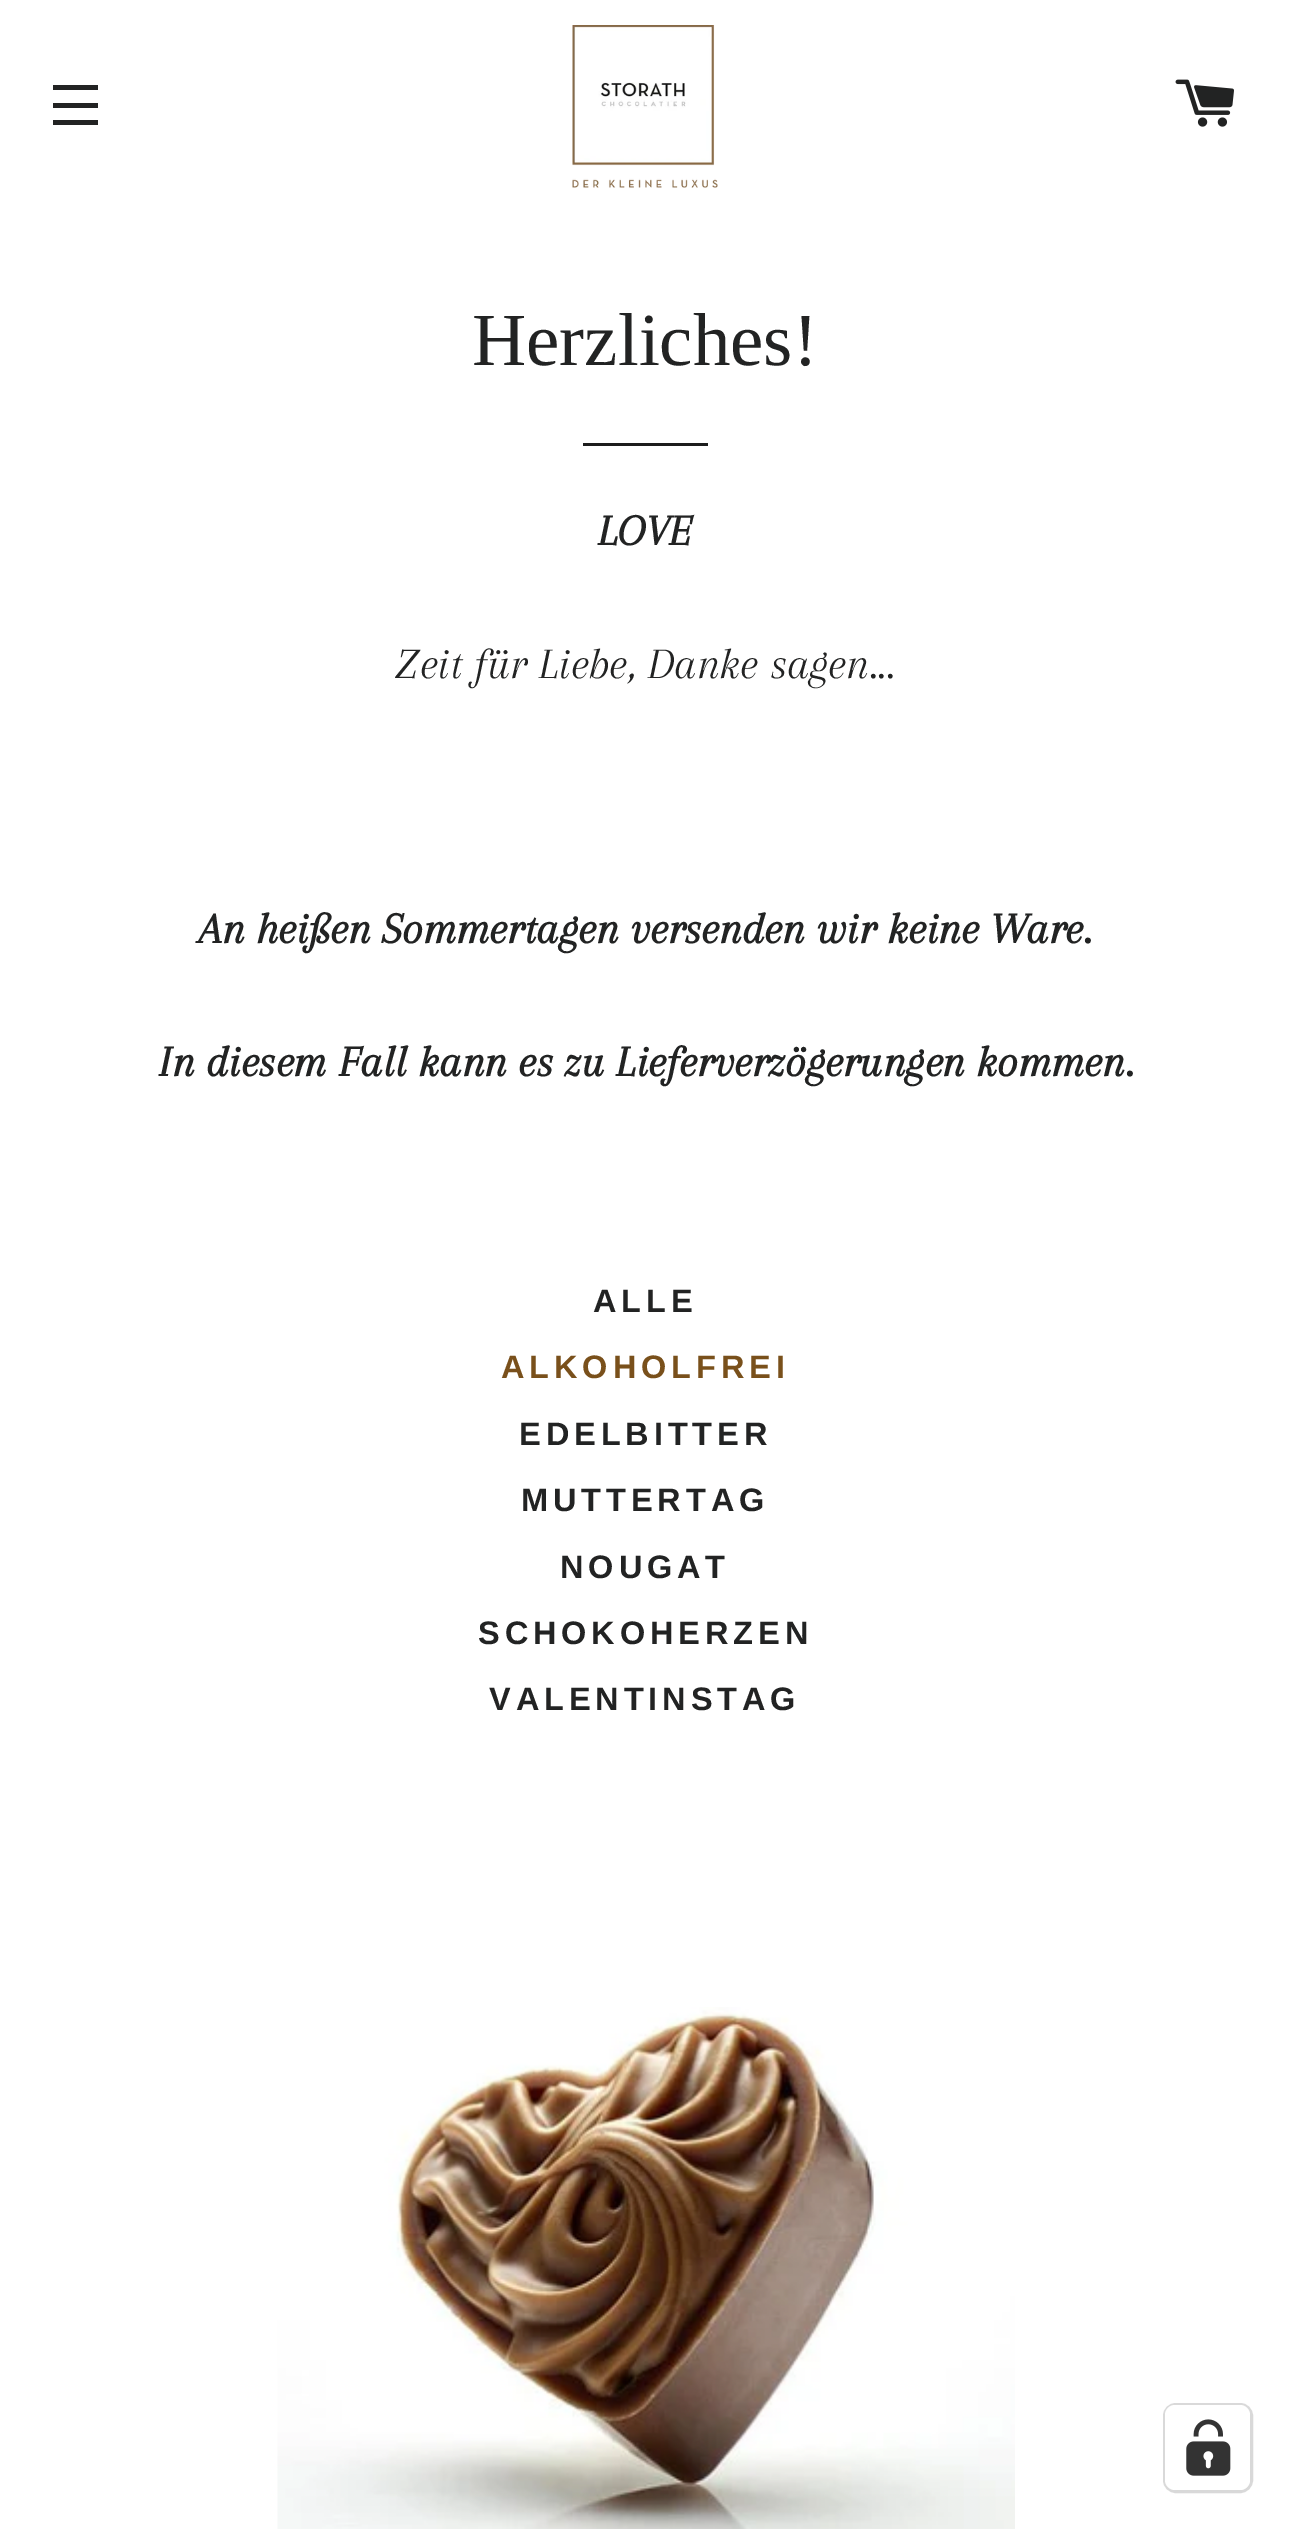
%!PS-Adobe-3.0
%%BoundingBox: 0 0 1289 2529
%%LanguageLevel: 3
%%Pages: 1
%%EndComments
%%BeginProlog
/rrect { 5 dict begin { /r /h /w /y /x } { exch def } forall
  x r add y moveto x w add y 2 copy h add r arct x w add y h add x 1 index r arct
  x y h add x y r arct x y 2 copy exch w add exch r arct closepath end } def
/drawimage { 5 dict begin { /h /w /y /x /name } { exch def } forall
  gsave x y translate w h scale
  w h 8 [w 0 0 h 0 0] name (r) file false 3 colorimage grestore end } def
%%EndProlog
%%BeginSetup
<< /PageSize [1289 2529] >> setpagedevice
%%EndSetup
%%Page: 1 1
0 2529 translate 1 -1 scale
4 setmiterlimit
1 setgray
0 0 1289 2529 rectfill
0.133 0.137 0.137 setrgbcolor
53 85 45 5 rectfill
53 103 45 5 rectfill
53 120 45 5 rectfill
(images/1.raw) 572 25 146 163 drawimage
(images/2.raw) 1175 79 59 48 drawimage
0.11 0.114 0.114 setrgbcolor
583 443 125 3 rectfill
(images/3.raw) 277 2007 738 522 drawimage
0.851 setgray
3 setlinewidth
1164.5 2404.5 87 87 11.5 rrect stroke
1 setgray
1165 2405 85 85 10 rrect fill
(images/4.raw) 1186 2419 45 57 drawimage
/LiberationSerif-Regular [75 0 0 -75 0 0] selectfont
0.133 0.137 0.137 setrgbcolor
472 365 moveto (Herzliches!) show
/Arapey-BoldItalic [45 0 0 -45 0 0] selectfont
597 545 moveto (LOVE) show
/Arapey-Italic [45 0 0 -45 0 0] selectfont
395 678 moveto (Zeit für Liebe, Danke sagen...) show
/Arapey-BoldItalic [45 0 0 -45 0 0] selectfont
199 943 moveto (An heißen Sommertagen versenden wir keine Ware.) show
158 1076 moveto (In diesem Fall kann es zu Lieferverzögerungen kommen.) show
/LiberationSans-Bold [32.5 0 0 -32.5 0 0] selectfont
593 1312 moveto 4.9 0 (ALLE) ashow
0.475 0.314 0.106 setrgbcolor
501 1378 moveto 4.9 0 (ALKOHOLFREI) ashow
0.133 0.137 0.137 setrgbcolor
519 1445 moveto 4.9 0 (EDELBITTER) ashow
521 1511 moveto 4.9 0 (MUTTERTAG) ashow
560 1578 moveto 4.9 0 (NOUGAT) ashow
478 1644 moveto 4.9 0 (SCHOKOHERZEN) ashow
489 1710 moveto 4.9 0 (VALENTINSTAG) ashow
showpage
%%EOF
